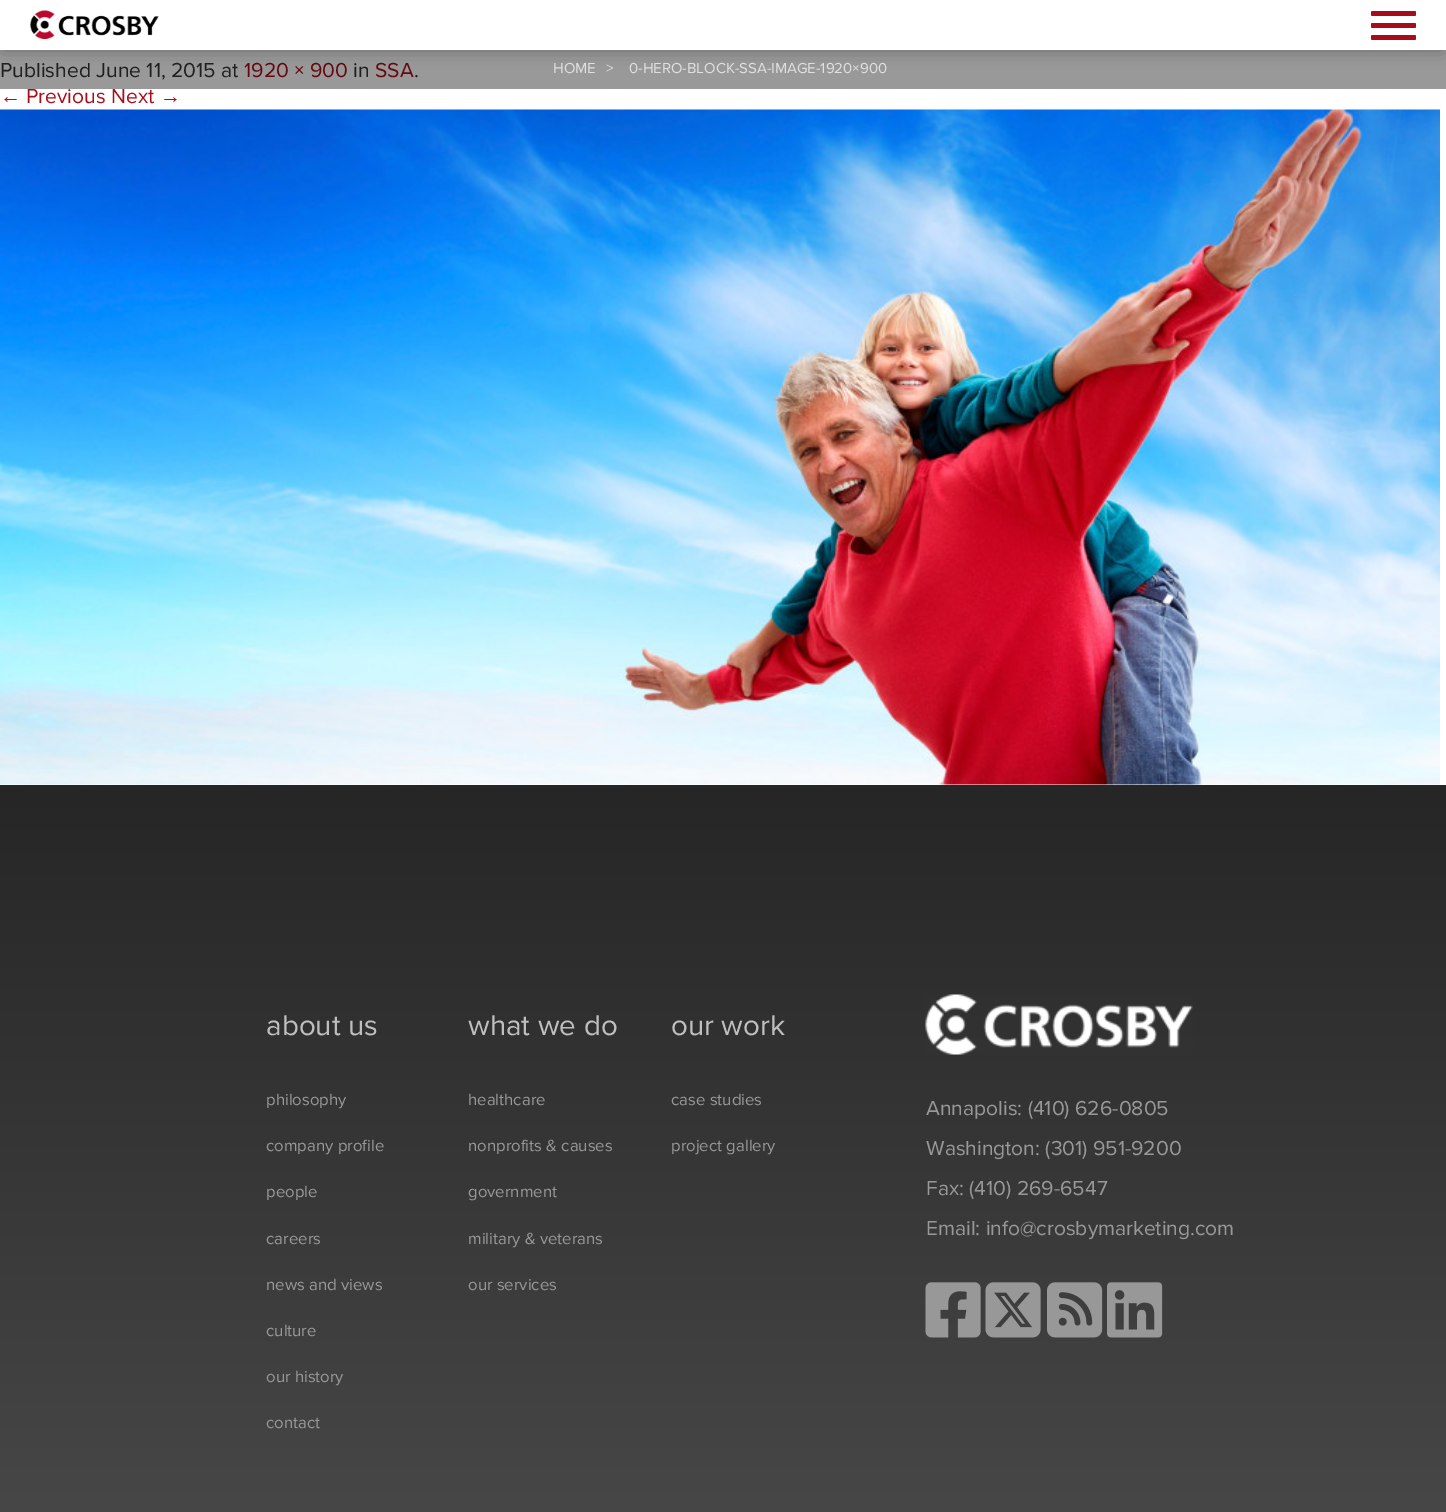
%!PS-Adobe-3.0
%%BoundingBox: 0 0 1446 1512
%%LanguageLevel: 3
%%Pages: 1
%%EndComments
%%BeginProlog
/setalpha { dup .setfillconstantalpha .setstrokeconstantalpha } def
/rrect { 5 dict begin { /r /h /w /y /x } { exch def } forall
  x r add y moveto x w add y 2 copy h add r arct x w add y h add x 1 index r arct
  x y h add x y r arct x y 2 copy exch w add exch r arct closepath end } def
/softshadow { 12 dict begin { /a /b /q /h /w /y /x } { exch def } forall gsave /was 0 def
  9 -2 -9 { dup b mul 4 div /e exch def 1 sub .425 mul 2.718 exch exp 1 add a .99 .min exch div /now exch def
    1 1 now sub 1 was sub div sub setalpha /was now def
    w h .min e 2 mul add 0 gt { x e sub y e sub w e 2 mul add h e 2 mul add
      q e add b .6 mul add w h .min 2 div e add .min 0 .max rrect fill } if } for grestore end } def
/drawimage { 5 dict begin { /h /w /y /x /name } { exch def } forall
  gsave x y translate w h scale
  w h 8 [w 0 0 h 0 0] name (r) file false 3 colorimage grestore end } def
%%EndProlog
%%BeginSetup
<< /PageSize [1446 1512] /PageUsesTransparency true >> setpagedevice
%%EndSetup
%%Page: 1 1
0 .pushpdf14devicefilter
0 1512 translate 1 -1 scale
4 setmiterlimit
1 setgray
0 0 1446 1512 rectfill
(images/2.raw) 0 109 1440 676 drawimage
gsave newpath 0 785 moveto 1446 785 lineto 1446 1512 lineto 0 1512 lineto closepath clip newpath
<< /ShadingType 2 /ColorSpace /DeviceRGB /Coords [723 785 723 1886] /Extend [true true] /Function << /FunctionType 2 /Domain [0 1] /C0 [0.149 0.149 0.149] /C1 [0.345 0.345 0.345] /N 1 >> >> shfill grestore
(images/3.raw) 925 994 268 61 drawimage
(images/4.raw) 925 1282 56 56 drawimage
(images/5.raw) 985 1282 56 56 drawimage
(images/6.raw) 1047 1282 56 56 drawimage
(images/7.raw) 1107 1282 56 56 drawimage
/ProximaNova-Regular [21 0 0 -21 0 0] selectfont
0.2 setgray
0 77 moveto (Published June 11, 2015 at) show
0.659 0.051 0.106 setrgbcolor
244 77 moveto (1920 × 900) show
0.2 setgray
353 77 moveto (in) show
0.659 0.051 0.106 setrgbcolor
375 77 moveto (SSA) show
0.2 setgray
414 77 moveto (.) show
/LiberationSans-Regular [21 0 0 -21 0 0] selectfont
0.659 0.051 0.106 setrgbcolor
0 103 moveto (←) show
/ProximaNova-Regular [21 0 0 -21 0 0] selectfont
26 103 moveto (Previous Next) show
/LiberationSans-Regular [21 0 0 -21 0 0] selectfont
160 103 moveto (→) show
0.4 setalpha
0 setgray
0 50 1446 39 rectfill
1 setalpha
3 6 1440 44 0 9 0.3 softshadow
1 setgray
0 0 1446 50 rectfill
(images/1.raw) 30 10 129 29 drawimage
0.655 0.047 0.106 setrgbcolor
1371 35 45 5 1.5 rrect fill
1371 23 45 5 1.5 rrect fill
1371 11 45 5 1.5 rrect fill
/ProximaNova-Regular [15 0 0 -15 0 0] selectfont
0.878 setgray
553 73 moveto (HOME) show
606 73 moveto (>) show
629 73 moveto (0-HERO-BLOCK-SSA-IMAGE-1920×900) show
/ProximaNova-Regular [29.5 0 0 -29.5 0 0] selectfont
0.753 0.749 0.749 setrgbcolor
266 1035 moveto (about us) show
/ProximaNova-Regular [16.75 0 0 -16.75 0 0] selectfont
0.6 0.596 0.596 setrgbcolor
266 1105 moveto (philosophy) show
266 1151 moveto (company profile) show
266 1197 moveto (people) show
266 1244 moveto (careers) show
266 1290 moveto (news and views) show
266 1336 moveto (culture) show
266 1382 moveto (our history) show
266 1428 moveto (contact) show
/ProximaNova-Regular [29.5 0 0 -29.5 0 0] selectfont
0.753 0.749 0.749 setrgbcolor
468 1035 moveto (what we do) show
/ProximaNova-Regular [16.75 0 0 -16.75 0 0] selectfont
0.6 0.596 0.596 setrgbcolor
468 1105 moveto (healthcare) show
468 1151 moveto (nonprofits & causes) show
468 1197 moveto (government) show
468 1244 moveto (military & veterans) show
468 1290 moveto (our services) show
/ProximaNova-Regular [29.5 0 0 -29.5 0 0] selectfont
0.753 0.749 0.749 setrgbcolor
671 1035 moveto (our work) show
/ProximaNova-Regular [16.75 0 0 -16.75 0 0] selectfont
0.6 0.596 0.596 setrgbcolor
671 1105 moveto (case studies) show
671 1151 moveto (project gallery) show
/ProximaNova-Regular [21 0 0 -21 0 0] selectfont
926 1115 moveto (Annapolis: \(410\) 626-0805) show
926 1155 moveto (Washington: \(301\) 951-9200) show
926 1195 moveto (Fax: \(410\) 269-6547) show
926 1235 moveto (Email: info@crosbymarketing.com) show
.poppdf14devicefilter showpage
%%EOF
